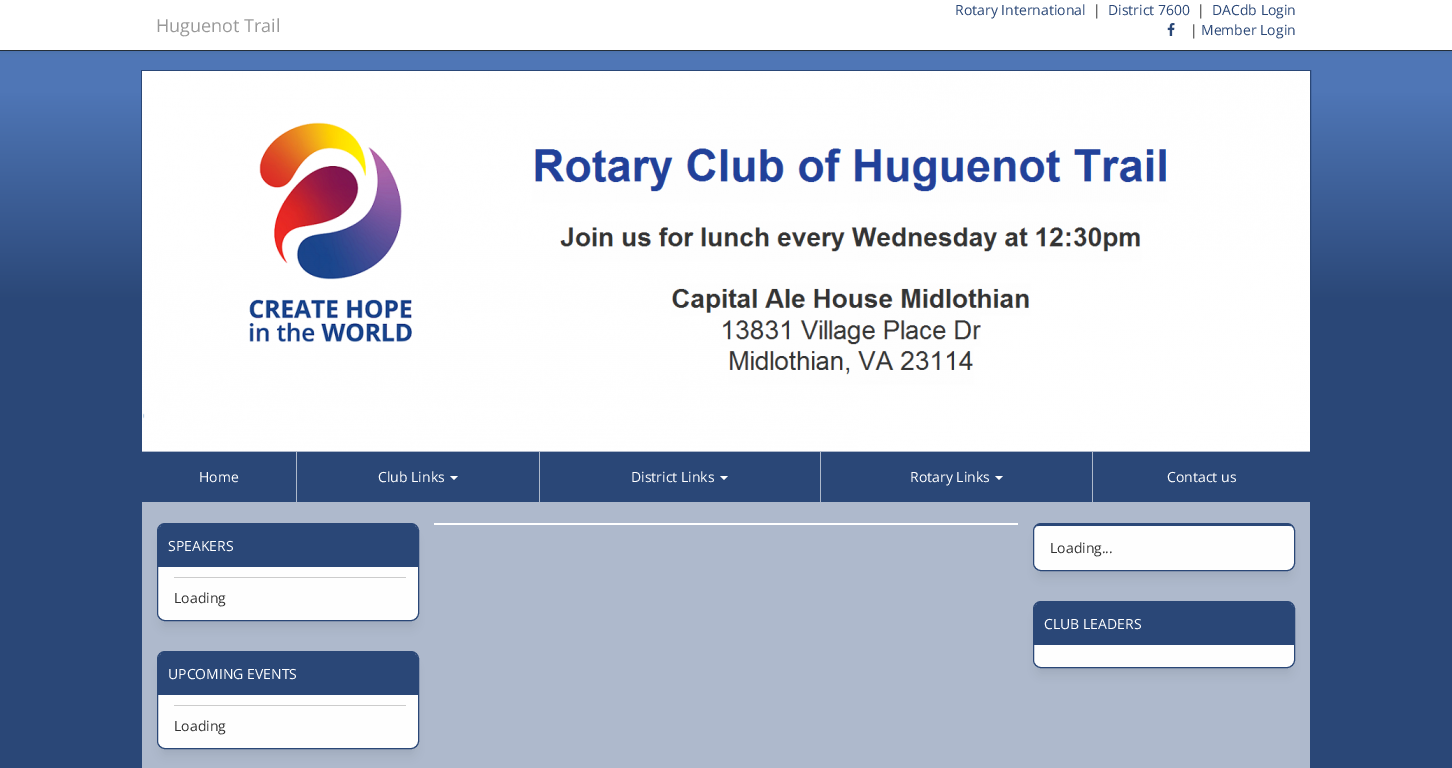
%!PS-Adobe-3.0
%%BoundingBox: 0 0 1452 768
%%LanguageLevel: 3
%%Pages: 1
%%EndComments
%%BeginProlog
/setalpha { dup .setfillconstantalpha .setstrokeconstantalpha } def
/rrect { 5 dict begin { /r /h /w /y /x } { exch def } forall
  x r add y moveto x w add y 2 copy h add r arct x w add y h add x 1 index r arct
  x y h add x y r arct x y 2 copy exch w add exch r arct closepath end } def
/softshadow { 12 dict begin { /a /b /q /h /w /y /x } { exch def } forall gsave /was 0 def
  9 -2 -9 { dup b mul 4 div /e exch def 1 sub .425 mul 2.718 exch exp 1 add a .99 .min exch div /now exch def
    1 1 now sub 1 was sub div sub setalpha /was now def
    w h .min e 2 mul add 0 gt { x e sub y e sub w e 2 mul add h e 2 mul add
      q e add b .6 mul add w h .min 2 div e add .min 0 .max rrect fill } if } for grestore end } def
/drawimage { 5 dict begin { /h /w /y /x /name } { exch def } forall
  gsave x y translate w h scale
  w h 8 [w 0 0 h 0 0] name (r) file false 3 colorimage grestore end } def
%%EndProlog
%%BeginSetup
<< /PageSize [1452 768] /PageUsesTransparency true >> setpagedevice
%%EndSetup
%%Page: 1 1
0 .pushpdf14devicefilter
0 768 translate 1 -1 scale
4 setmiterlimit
1 setgray
0 0 1452 768 rectfill
gsave newpath 0 51 moveto 1452 51 lineto 1452 768 lineto 0 768 lineto closepath clip newpath
<< /ShadingType 2 /ColorSpace /DeviceRGB /Coords [726 0 726 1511] /Extend [true true] /Function << /FunctionType 3 /Domain [0 1] /Functions [<< /FunctionType 2 /Domain [0 1] /C0 [0.31 0.463 0.714] /C1 [0.31 0.463 0.714] /N 1 >> << /FunctionType 2 /Domain [0 1] /C0 [0.31 0.463 0.714] /C1 [0.165 0.278 0.467] /N 1 >> << /FunctionType 2 /Domain [0 1] /C0 [0.165 0.278 0.467] /C1 [0.165 0.278 0.467] /N 1 >>] /Bounds [0.06 0.2] /Encode [0 1 0 1 0 1] >> >> shfill grestore
0 setgray
0 1 1452 51 0 2.5 0.07 softshadow
1 setgray
0 0 1452 50 rectfill
0.141 0.18 0.22 setrgbcolor
0 50 1452 1 rectfill
(images/1.raw) 1167 23 8 13 drawimage
0.165 0.278 0.467 setrgbcolor
141.5 70.5 1169 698 rectstroke
(images/2.raw) 142 71 1168 380 drawimage
0.682 0.725 0.796 setrgbcolor
142 451 1168 1 rectfill
142 502 1168 1 rectfill
296 452 1 50 rectfill
539 452 1 50 rectfill
1 setgray
newpath 450 476 moveto 458 476 lineto 454 480 lineto closepath fill
0.682 0.725 0.796 setrgbcolor
820 452 1 50 rectfill
1 setgray
newpath 720 476 moveto 728 476 lineto 724 480 lineto closepath fill
0.682 0.725 0.796 setrgbcolor
1092 452 1 50 rectfill
1 setgray
newpath 995 476 moveto 1003 476 lineto 999 480 lineto closepath fill
0.682 0.725 0.8 setrgbcolor
142 503 1168 265 rectfill
1 setgray
434 523 584 2 rectfill
0 setgray
162 538 252 88 3 5 0.08 softshadow
0.996 setgray
newpath 165 526 moveto 411 526 lineto 415 526 418 528 418 531 curveto 418 613 lineto 418 617 415 620 411 620 curveto 165 620 lineto 161 620 158 617 158 613 curveto 158 531 lineto 158 528 161 526 165 526 curveto closepath fill
0.165 0.278 0.467 setrgbcolor
157.5 523.5 261 97 7.5 rrect stroke
161 524 254 2 rectfill
newpath 162 526 moveto 414 526 lineto 416 526 418 528 418 530 curveto 418 567 lineto 158 567 lineto 158 530 lineto 158 528 160 526 162 526 curveto closepath fill
0.8 setgray
174 577 232 1 rectfill
0 setgray
162 666 252 88 3 5 0.08 softshadow
0.996 setgray
newpath 165 654 moveto 411 654 lineto 415 654 418 656 418 659 curveto 418 741 lineto 418 745 415 748 411 748 curveto 165 748 lineto 161 748 158 745 158 741 curveto 158 659 lineto 158 656 161 654 165 654 curveto closepath fill
0.165 0.278 0.467 setrgbcolor
157.5 651.5 261 97 7.5 rrect stroke
161 652 254 2 rectfill
newpath 162 654 moveto 414 654 lineto 416 654 418 656 418 658 curveto 418 695 lineto 158 695 lineto 158 658 lineto 158 656 160 654 162 654 curveto closepath fill
0.8 setgray
174 705 232 1 rectfill
0 setgray
1038 538 252 38 3 5 0.08 softshadow
0.996 setgray
newpath 1041 526 moveto 1287 526 lineto 1291 526 1294 528 1294 531 curveto 1294 563 lineto 1294 567 1291 570 1287 570 curveto 1041 570 lineto 1037 570 1034 567 1034 563 curveto 1034 531 lineto 1034 528 1037 526 1041 526 curveto closepath fill
0.165 0.278 0.467 setrgbcolor
1033.5 523.5 261 47 7.5 rrect stroke
1037 524 254 2 rectfill
0 setgray
1038 616 252 57 3 5 0.08 softshadow
0.996 setgray
newpath 1041 604 moveto 1287 604 lineto 1291 604 1294 606 1294 609 curveto 1294 660 lineto 1294 664 1291 667 1287 667 curveto 1041 667 lineto 1037 667 1034 664 1034 660 curveto 1034 609 lineto 1034 606 1037 604 1041 604 curveto closepath fill
0.165 0.278 0.467 setrgbcolor
1033.5 601.5 261 66 7.5 rrect stroke
1037 602 254 2 rectfill
newpath 1038 604 moveto 1290 604 lineto 1292 604 1294 606 1294 608 curveto 1294 645 lineto 1034 645 lineto 1034 608 lineto 1034 606 1036 604 1038 604 curveto closepath fill
/OpenSans-Regular [14 0 0 -14 0 0] selectfont
955 15 moveto (Rotary International) show
0.2 setgray
1093 15 moveto (|) show
0.165 0.278 0.467 setrgbcolor
1108 15 moveto (District 7600) show
0.2 setgray
1197 15 moveto (|) show
0.165 0.278 0.467 setrgbcolor
1212 15 moveto (DACdb Login) show
/OpenSans-Regular [18 0 0 -18 0 0] selectfont
0.6 setgray
156 32 moveto (Huguenot Trail) show
/OpenSans-Regular [14 0 0 -14 0 0] selectfont
0.2 setgray
1190 35 moveto (|) show
0.165 0.278 0.467 setrgbcolor
1201 35 moveto (Member Login) show
1 setgray
199 482 moveto (Home) show
378 482 moveto (Club Links) show
631 482 moveto (District Links) show
910 482 moveto (Rotary Links) show
1167 482 moveto (Contact us) show
168 551 moveto (SPEAKERS) show
0.2 setgray
174 603 moveto (Loading) show
1 setgray
168 679 moveto (UPCOMING EVENTS) show
0.2 setgray
174 731 moveto (Loading) show
1050 553 moveto (Loading...) show
1 setgray
1044 629 moveto (CLUB LEADERS) show
.poppdf14devicefilter showpage
%%EOF
